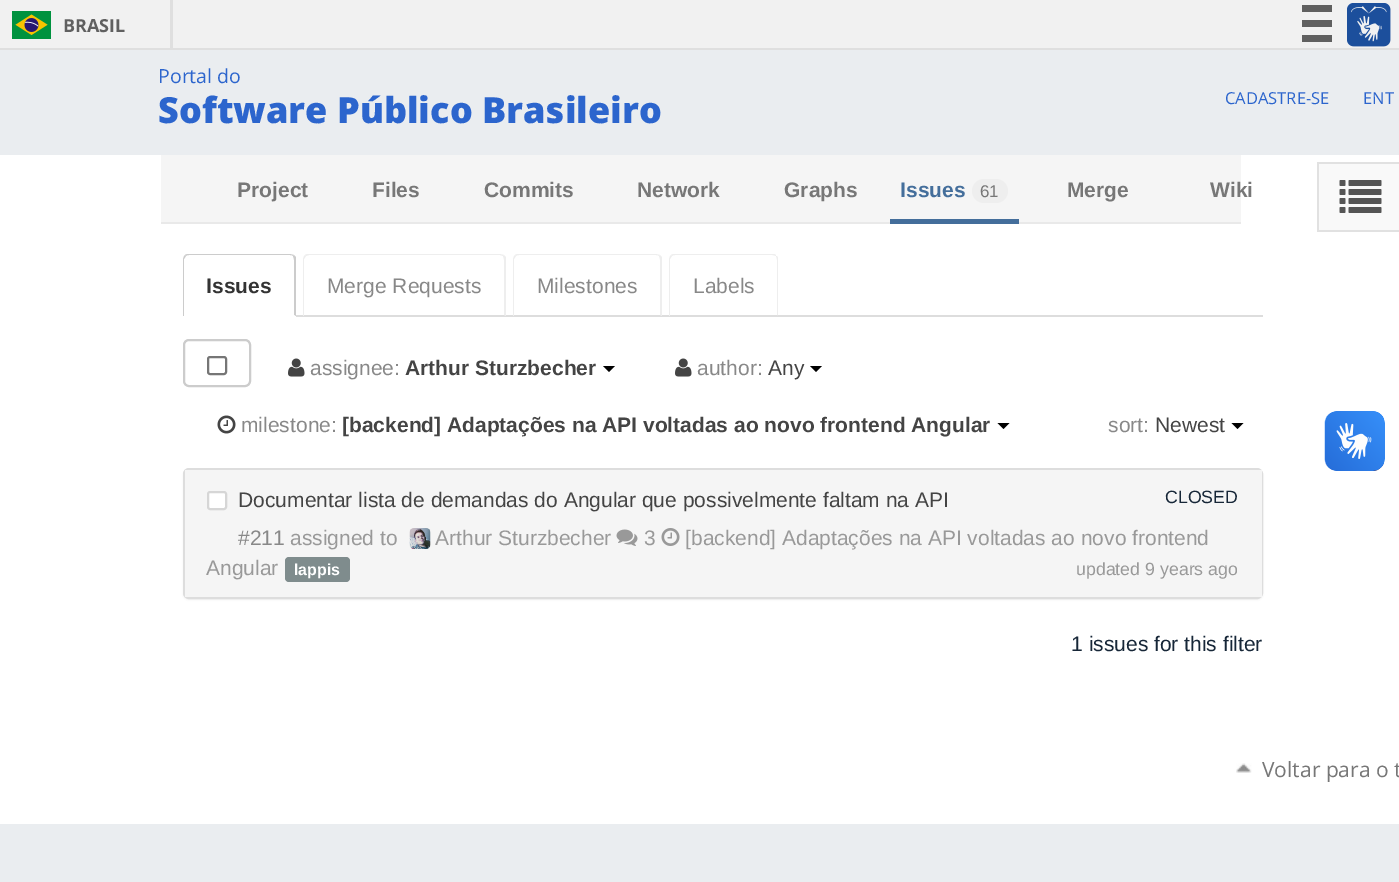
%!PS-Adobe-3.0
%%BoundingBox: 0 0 1399 882
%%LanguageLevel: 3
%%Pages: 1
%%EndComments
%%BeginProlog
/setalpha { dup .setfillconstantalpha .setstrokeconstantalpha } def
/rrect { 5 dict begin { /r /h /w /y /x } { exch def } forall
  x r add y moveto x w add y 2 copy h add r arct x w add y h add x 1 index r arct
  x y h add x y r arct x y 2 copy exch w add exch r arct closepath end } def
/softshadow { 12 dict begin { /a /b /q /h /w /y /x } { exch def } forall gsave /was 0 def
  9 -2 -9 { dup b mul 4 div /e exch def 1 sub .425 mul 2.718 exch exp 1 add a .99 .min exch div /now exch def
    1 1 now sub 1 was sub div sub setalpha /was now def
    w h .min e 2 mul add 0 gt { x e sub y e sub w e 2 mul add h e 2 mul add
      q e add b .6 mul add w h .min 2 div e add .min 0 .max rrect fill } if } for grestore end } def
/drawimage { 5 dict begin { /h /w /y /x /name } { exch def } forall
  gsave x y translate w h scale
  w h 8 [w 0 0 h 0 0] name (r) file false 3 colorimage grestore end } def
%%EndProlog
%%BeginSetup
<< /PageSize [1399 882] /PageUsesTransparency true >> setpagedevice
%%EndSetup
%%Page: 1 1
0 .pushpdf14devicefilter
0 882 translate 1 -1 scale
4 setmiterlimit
1 setgray
0 0 1399 882 rectfill
0.945 setgray
0 0 1399 48 rectfill
0.875 setgray
0 48 1399 2 rectfill
170 0 3 48 rectfill
(images/1.raw) 12 11 39 28 drawimage
0.376 setgray
1302 5 30 7 rectfill
1302 20 30 7 rectfill
1302 35 30 7 rectfill
(images/2.raw) 1347 3 44 44 drawimage
0.918 0.929 0.941 setrgbcolor
0 50 1399 105 rectfill
0.961 setgray
161 155 1080 67 rectfill
0.914 setgray
161 222 1080 2 rectfill
0.267 0.431 0.608 setrgbcolor
890 219 129 5 rectfill
0.933 setgray
972 179 36 24 12 rrect fill
0.867 setgray
296 315 967 2 rectfill
0.8 setgray
newpath 189 254 moveto 188 254 186 254 185 255 curveto 186 256 lineto 187 255 188 255 189 255 curveto 290 255 lineto 291 255 292 255 293 256 curveto 294 255 lineto 290 254 lineto closepath fill
newpath 294 255 moveto 296 257 lineto 296 316 lineto 294 315 lineto 294 260 lineto 294 258 293 257 293 256 curveto closepath fill
1 setgray
newpath 295 316 moveto 184 316 lineto 184 315 lineto 294 315 lineto closepath fill
0.8 setgray
newpath 183 260 moveto 183 316 lineto 184 316 lineto 184 315 lineto 184 259 lineto 186 256 lineto 185 255 lineto 184 256 183 258 183 260 curveto closepath fill
0.933 setgray
newpath 309 254 moveto 308 254 306 254 305 255 curveto 306 256 lineto 309 255 lineto 500 255 lineto 503 256 lineto 504 255 lineto 500 254 lineto closepath fill
newpath 504 255 moveto 506 257 lineto 506 316 lineto 504 315 lineto 504 260 lineto 504 258 503 257 503 256 curveto closepath fill
newpath 303 260 moveto 303 316 lineto 304 316 lineto 304 315 lineto 304 259 lineto 306 256 lineto 305 255 lineto 304 256 303 258 303 260 curveto closepath fill
newpath 519 254 moveto 518 254 516 254 515 255 curveto 516 256 lineto 517 255 518 255 519 255 curveto 656 255 lineto 657 255 658 255 659 256 curveto 660 255 lineto 656 254 lineto closepath fill
newpath 660 255 moveto 662 257 lineto 662 316 lineto 660 315 lineto 660 260 lineto 660 258 659 257 659 256 curveto closepath fill
newpath 513 260 moveto 513 316 lineto 514 316 lineto 514 315 lineto 514 259 lineto 516 256 lineto 515 255 lineto 514 256 513 258 513 260 curveto closepath fill
newpath 675 254 moveto 674 254 672 254 671 255 curveto 672 256 lineto 673 255 674 255 675 255 curveto 772 255 lineto 774 255 775 256 776 256 curveto 776 254 774 254 772 254 curveto closepath fill
newpath 778 316 moveto 778 260 lineto 778 258 778 256 776 256 curveto 776 257 777 258 777 260 curveto 777 315 lineto closepath fill
0.867 setgray
newpath 778 316 moveto 777 315 lineto 670 315 lineto 670 316 lineto closepath fill
0.933 setgray
newpath 669 260 moveto 669 316 lineto 670 316 lineto 670 315 lineto 670 259 lineto 672 256 lineto 671 255 lineto 670 256 669 258 669 260 curveto closepath fill
0.976 setgray
1319 164 80 66 rectfill
0.882 setgray
1317 162 82 2 rectfill
1317 230 82 2 rectfill
1317 162 2 69 rectfill
(images/3.raw) 1339 180 43 33 drawimage
0.8 setgray
2 setlinewidth
184 340 66 46 5 rrect stroke
0.463 setgray
208 357 18 17 2 rrect stroke
(images/4.raw) 288 358 17 19 drawimage
0 setgray
newpath 603 366 moveto 615 366 lineto 609 372 lineto closepath fill
(images/4.raw) 675 358 17 19 drawimage
newpath 810 366 moveto 822 366 lineto 816 372 lineto closepath fill
(images/5.raw) 217 415 19 19 drawimage
newpath 997.5 423 moveto 1009.5 423 lineto 1003.5 429 lineto closepath fill
newpath 1231.5 423 moveto 1243.5 423 lineto 1237.5 429 lineto closepath fill
183 470 1080 130 6 1 0.05 softshadow
0.867 setgray
184 469 1078 129 5 rrect stroke
0.961 setgray
185 470 1077 127 rectfill
1 setgray
207 491 20 19 3 rrect fill
0.3 setalpha
0.463 setgray
208 492 18 17 2 rrect stroke
1 setalpha
(images/6.raw) 409 528 22 21 drawimage
(images/7.raw) 661 528 19 18 drawimage
(images/8.raw) 616 529 22 17 drawimage
0.498 0.549 0.553 setrgbcolor
285 557 65 25 4 rrect fill
(images/9.raw) 1324 411 61 60 drawimage
(images/10.raw) 1325 411 60 60 drawimage
(images/11.raw) 1236 763 16 10 drawimage
0.918 0.929 0.941 setrgbcolor
0 824 1399 58 rectfill
/OpenSans-Bold [18 0 0 -18 0 0] selectfont
0.376 setgray
63 32 moveto (BRASIL) show
/OpenSans-Regular [19.5 0 0 -19.5 0 0] selectfont
0.173 0.396 0.804 setrgbcolor
158 83 moveto (Portal do) show
/OpenSans-ExtraBold [36 0 0 -36 0 0] selectfont
158 123 moveto (Software Público Brasileiro) show
/OpenSans-Regular [16.5 0 0 -16.5 0 0] selectfont
1225 104 moveto (CADASTRE-SE) show
1363 104 moveto (ENT) show
/LiberationSans-Bold [21 0 0 -21 0 0] selectfont
0.467 setgray
237 197 moveto (Project) show
372 197 moveto (Files) show
484 197 moveto (Commits) show
637 197 moveto (Network) show
784 197 moveto (Graphs) show
0.267 0.431 0.608 setrgbcolor
900 197 moveto (Issues) show
/LiberationSans-Regular [17 0 0 -17 0 0] selectfont
0.467 setgray
980 197 moveto (61) show
/LiberationSans-Bold [21 0 0 -21 0 0] selectfont
1067 197 moveto (Merge) show
1210 197 moveto (Wiki) show
0.2 setgray
206 293 moveto (Issues) show
/LiberationSans-Regular [21 0 0 -21 0 0] selectfont
0.533 setgray
327 293 moveto (Merge Requests) show
537 293 moveto (Milestones) show
693 293 moveto (Labels) show
310 375 moveto (assignee:) show
/LiberationSans-Bold [21 0 0 -21 0 0] selectfont
0.267 setgray
405 375 moveto (Arthur Sturzbecher) show
/LiberationSans-Regular [21 0 0 -21 0 0] selectfont
0.533 setgray
697 375 moveto (author:) show
0.267 setgray
768 375 moveto (Any) show
0.533 setgray
241 432 moveto (milestone:) show
/LiberationSans-Bold [21 0 0 -21 0 0] selectfont
0.267 setgray
342 432 moveto ([backend] Adaptações na API voltadas ao novo frontend Angular) show
/LiberationSans-Regular [21 0 0 -21 0 0] selectfont
0.533 setgray
1108 432 moveto (sort:) show
0.267 setgray
1155 432 moveto (Newest) show
238 507 moveto (Documentar lista de demandas do Angular que possivelmente faltam na API) show
/LiberationSans-Regular [17.75 0 0 -17.75 0 0] selectfont
0.09 0.153 0.22 setrgbcolor
1165 503 moveto (CLOSED) show
/LiberationSans-Regular [21 0 0 -21 0 0] selectfont
0.6 setgray
685 545 moveto ([backend] Adaptações na API voltadas ao novo frontend) show
206 575 moveto (Angular) show
0.533 setgray
238 545 moveto (#211) show
0.6 setgray
290 545 moveto (assigned to) show
435 545 moveto (Arthur Sturzbecher) show
644 545 moveto (3) show
/LiberationSans-Bold [16 0 0 -16 0 0] selectfont
1 setgray
294 575 moveto (lappis) show
/LiberationSans-Regular [17.75 0 0 -17.75 0 0] selectfont
0.6 setgray
1076 575 moveto (updated 9 years ago) show
/LiberationSans-Regular [21 0 0 -21 0 0] selectfont
0.09 0.153 0.22 setrgbcolor
1071 651 moveto (1 issues for this filter) show
/OpenSans-Regular [21 0 0 -21 0 0] selectfont
0.467 setgray
1262 777 moveto (Voltar para o t) show
.poppdf14devicefilter showpage
%%EOF
